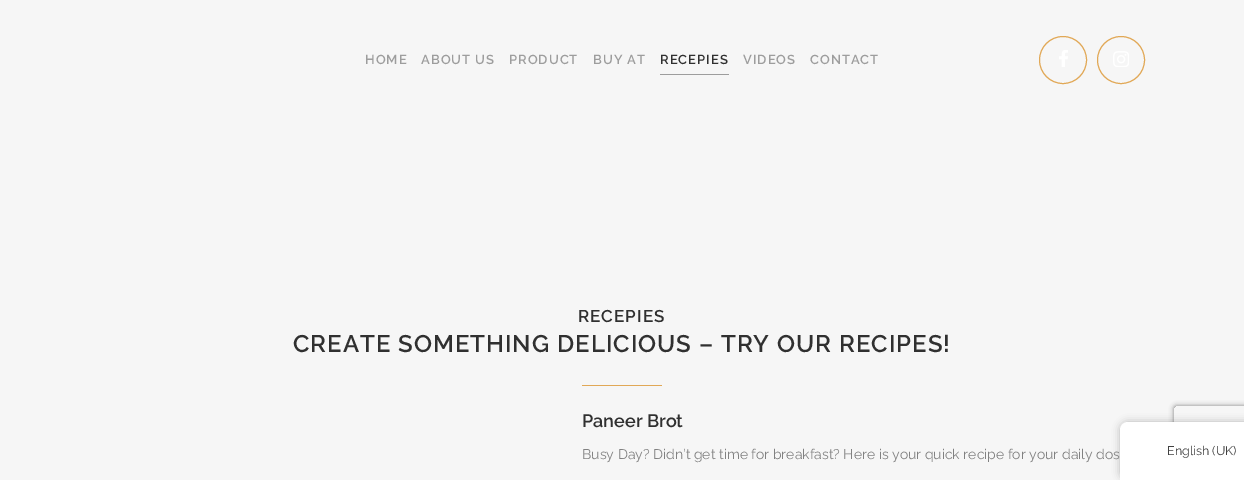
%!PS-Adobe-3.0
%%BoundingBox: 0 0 1244 480
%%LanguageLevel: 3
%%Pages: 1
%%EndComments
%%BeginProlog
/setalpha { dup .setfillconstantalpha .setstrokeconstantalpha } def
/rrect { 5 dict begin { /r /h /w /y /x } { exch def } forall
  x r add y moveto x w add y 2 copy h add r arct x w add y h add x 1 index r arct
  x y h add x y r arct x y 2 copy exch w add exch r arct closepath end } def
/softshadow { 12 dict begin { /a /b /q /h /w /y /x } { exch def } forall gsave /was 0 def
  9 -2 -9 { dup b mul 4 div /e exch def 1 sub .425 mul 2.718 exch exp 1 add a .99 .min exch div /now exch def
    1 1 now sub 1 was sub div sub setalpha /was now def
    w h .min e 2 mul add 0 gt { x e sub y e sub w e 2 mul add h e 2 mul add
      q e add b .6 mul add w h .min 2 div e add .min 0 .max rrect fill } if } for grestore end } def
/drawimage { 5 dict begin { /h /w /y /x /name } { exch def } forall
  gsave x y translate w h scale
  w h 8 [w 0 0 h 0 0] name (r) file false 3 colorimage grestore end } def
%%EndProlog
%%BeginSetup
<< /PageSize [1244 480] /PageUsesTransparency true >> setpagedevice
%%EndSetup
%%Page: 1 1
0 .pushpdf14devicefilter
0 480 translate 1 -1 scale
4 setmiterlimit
0.965 setgray
0 0 1244 480 rectfill
0.616 setgray
660 74 69 1 rectfill
0.882 0.659 0.337 setrgbcolor
newpath 1063 60 23.5 0 360 arc closepath stroke
(images/1.raw) 1059 50 9 17 drawimage
newpath 1121 60 23.5 0 360 arc closepath stroke
(images/2.raw) 1113 51 16 16 drawimage
582 385 80 1 rectfill
gsave
newpath 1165 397 moveto 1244 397 lineto 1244 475 lineto 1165 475 lineto closepath 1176 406 moveto 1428 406 lineto 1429 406 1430 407 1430 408 curveto 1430 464 lineto 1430 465 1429 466 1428 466 curveto 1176 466 lineto 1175 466 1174 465 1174 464 curveto 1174 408 lineto 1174 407 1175 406 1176 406 curveto closepath eoclip newpath
0.502 setgray
1174 406 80 60 2 2.5 1 softshadow
grestore
0 setgray
1120 422 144 58 8 4 0.25 softshadow
1 setgray
newpath 1128 422 moveto 1244 422 lineto 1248.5 422 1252 425.5 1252 430 curveto 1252 480 lineto 1120 480 lineto 1120 430 lineto 1120 425.5 1123.5 422 1128 422 curveto closepath fill
/Raleway-SemiBold [13 0 0 -13 0 0] selectfont
0.616 setgray
365 64 moveto 1 0 (HOME) ashow
421 64 moveto 1 0 (ABOUT US) ashow
509 64 moveto 1 0 (PRODUCT) ashow
593 64 moveto 1 0 (BUY AT) ashow
0.188 setgray
660 64 moveto 1 0 (RECEPIES) ashow
0.616 setgray
743 64 moveto 1 0 (VIDEOS) ashow
810 64 moveto 1 0 (CONTACT) ashow
/Raleway-SemiBold [17 0 0 -17 0 0] selectfont
0.188 setgray
578 322 moveto 1 0 (RECEPIES) ashow
/Raleway-SemiBold [24 0 0 -24 0 0] selectfont
293 352 moveto 1 0 (CREATE SOMETHING DELICIOUS – TRY OUR RECIPES!) ashow
/Raleway-SemiBold [18 0 0 -18 0 0] selectfont
582 427 moveto (Paneer Brot) show
/Raleway-Regular [14 0 0 -14 0 0] selectfont
0.506 setgray
582 459 moveto (Busy Day? Didn’t get time for breakfast? Here is your quick recipe for your daily dos) show
/Raleway-Regular [12.5 0 0 -12.5 0 0] selectfont
0.251 setgray
1167 455 moveto (English \(UK\)) show
.poppdf14devicefilter showpage
%%EOF
